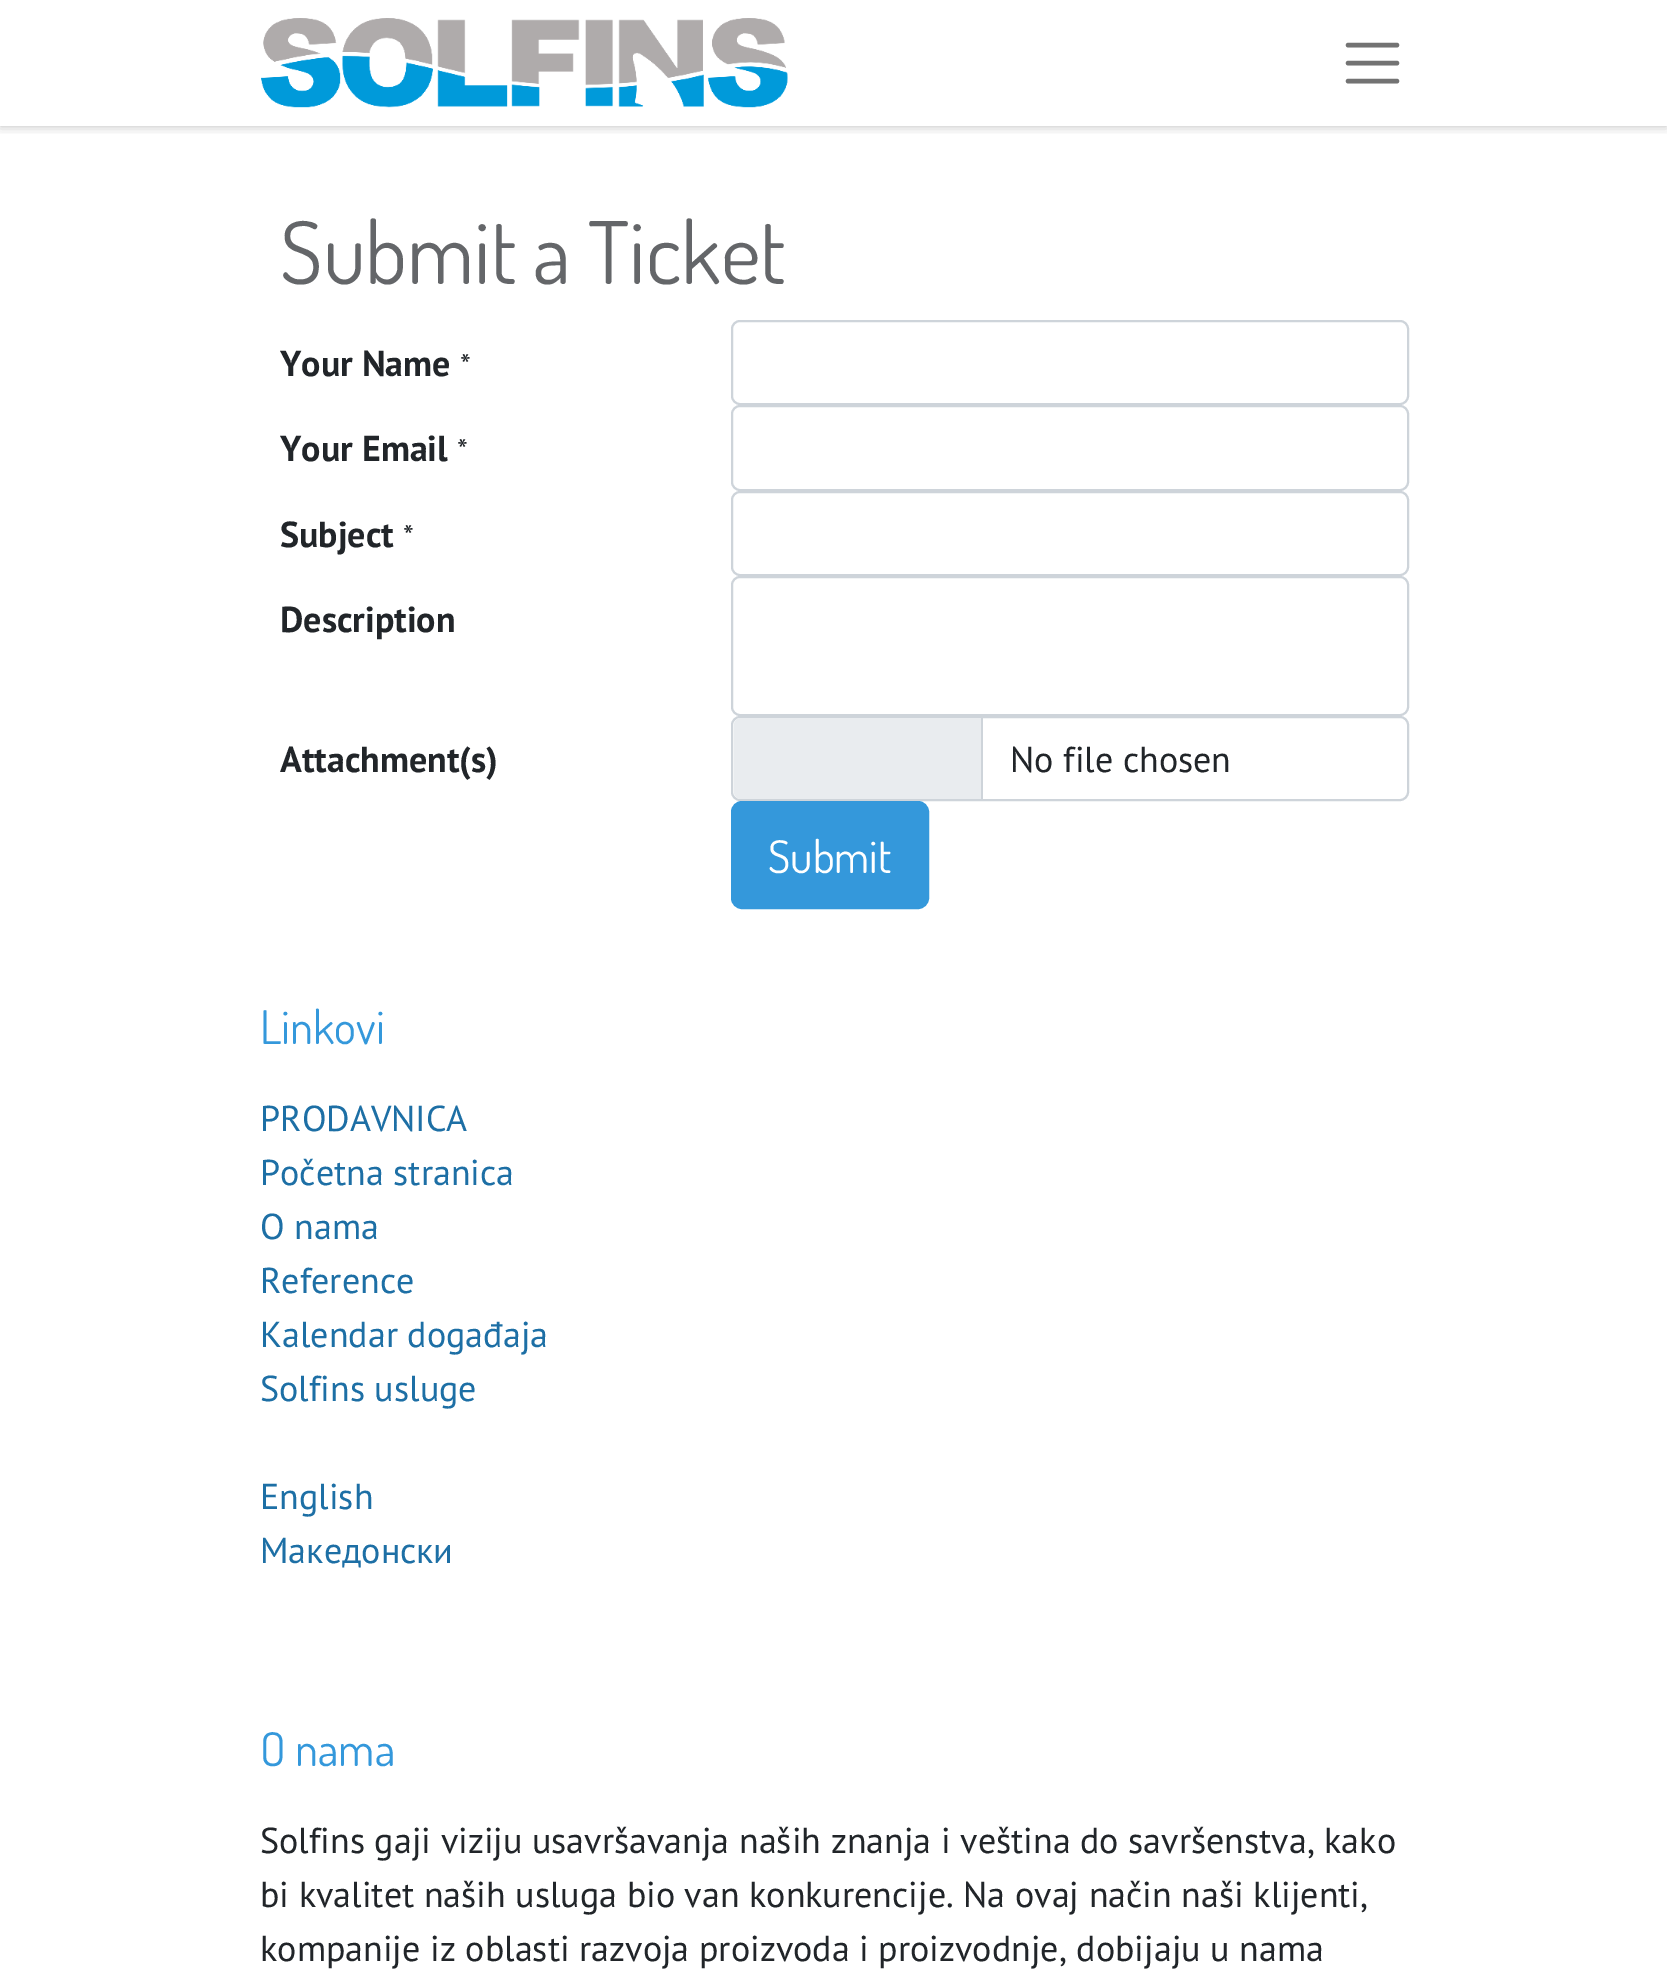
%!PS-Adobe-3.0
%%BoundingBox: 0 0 1667 1980
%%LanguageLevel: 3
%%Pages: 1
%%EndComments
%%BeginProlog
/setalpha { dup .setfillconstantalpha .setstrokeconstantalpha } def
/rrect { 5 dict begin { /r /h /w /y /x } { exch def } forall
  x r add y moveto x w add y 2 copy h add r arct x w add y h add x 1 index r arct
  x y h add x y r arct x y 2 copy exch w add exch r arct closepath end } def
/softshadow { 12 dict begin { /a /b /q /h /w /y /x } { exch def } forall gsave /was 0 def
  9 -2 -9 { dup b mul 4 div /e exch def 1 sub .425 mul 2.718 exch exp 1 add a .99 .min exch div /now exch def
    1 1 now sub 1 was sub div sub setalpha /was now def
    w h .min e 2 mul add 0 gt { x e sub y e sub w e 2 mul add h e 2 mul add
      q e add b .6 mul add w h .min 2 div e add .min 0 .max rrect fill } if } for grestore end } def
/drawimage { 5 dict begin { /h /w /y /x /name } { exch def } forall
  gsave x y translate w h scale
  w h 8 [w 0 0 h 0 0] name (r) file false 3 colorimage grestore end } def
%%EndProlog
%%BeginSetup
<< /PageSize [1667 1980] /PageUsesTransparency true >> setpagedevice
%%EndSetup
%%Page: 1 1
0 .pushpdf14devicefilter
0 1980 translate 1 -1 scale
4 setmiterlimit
1 setgray
0 0 1667 1980 rectfill
gsave
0 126 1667 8 rectclip
0 setgray
0 0 1667 126 0 5.5 0.25 softshadow
grestore
(images/1.raw) 261 18 527 90 drawimage
0.451 setgray
4.5 setlinewidth
1 setlinecap
newpath 1348 45 moveto 1397 45 lineto 1348 63 moveto 1397 63 lineto 1348 81 moveto 1397 81 lineto stroke
0.808 0.831 0.855 setrgbcolor
2 setlinewidth
0 setlinecap
732 321 676 83 8 rrect stroke
732 406 676 84 8 rrect stroke
732 492 676 83 8 rrect stroke
732 577 676 138 8 rrect stroke
732 717 676 83 8 rrect stroke
0.914 0.925 0.937 setrgbcolor
newpath 741 718 moveto 981 718 lineto 981 799 lineto 741 799 lineto 737 799 734 796 734 792 curveto 734 725 lineto 734 721 737 718 741 718 curveto closepath fill
0.808 0.831 0.855 setrgbcolor
981 718 2 81 rectfill
0.204 0.596 0.859 setrgbcolor
732 802 196 106 10 rrect gsave fill grestore
stroke
/Dosis-Regular [86.25 0 0 -86.25 0 0] selectfont
0.392 0.4 0.412 setrgbcolor
280 284 moveto (Submit a Ticket) show
/PTSans-Bold [36 0 0 -36 0 0] selectfont
0.129 0.145 0.161 setrgbcolor
280 376 moveto (Your Name) show
/PTSans-Regular [31 0 0 -31 0 0] selectfont
460 376 moveto (*) show
/PTSans-Bold [36 0 0 -36 0 0] selectfont
280 461 moveto (Your Email) show
/PTSans-Regular [31 0 0 -31 0 0] selectfont
457 461 moveto (*) show
/PTSans-Bold [36 0 0 -36 0 0] selectfont
280 547 moveto (Subject) show
/PTSans-Regular [31 0 0 -31 0 0] selectfont
403 547 moveto (*) show
/PTSans-Bold [36 0 0 -36 0 0] selectfont
280 632 moveto (Description) show
280 772 moveto (Attachment\(s\)) show
/PTSans-Regular [36 0 0 -36 0 0] selectfont
1010 772 moveto (No file chosen) show
/Dosis-Regular [45 0 0 -45 0 0] selectfont
1 setgray
768 873 moveto (Submit) show
/Dosis-Regular [46.5 0 0 -46.5 0 0] selectfont
0.204 0.596 0.859 setrgbcolor
260 1044 moveto (Linkovi) show
/PTSans-Regular [36 0 0 -36 0 0] selectfont
0.114 0.435 0.647 setrgbcolor
260 1131 moveto (PRODAVNICA) show
260 1185 moveto (Početna stranica) show
260 1239 moveto (O nama) show
260 1293 moveto (Reference) show
260 1347 moveto (Kalendar događaja) show
260 1401 moveto (Solfins usluge) show
260 1509 moveto (English) show
260 1563 moveto (Македонски) show
/Dosis-Regular [46.5 0 0 -46.5 0 0] selectfont
0.204 0.596 0.859 setrgbcolor
260 1766 moveto (O nama) show
/PTSans-Regular [36 0 0 -36 0 0] selectfont
0.129 0.145 0.161 setrgbcolor
260 1853 moveto (Solfins gaji viziju usavršavanja naših znanja i veština do savršenstva, kako) show
260 1907 moveto (bi kvalitet naših usluga bio van konkurencije. Na ovaj način naši klijenti,) show
260 1961 moveto (kompanije iz oblasti razvoja proizvoda i proizvodnje, dobijaju u nama) show
.poppdf14devicefilter showpage
%%EOF
